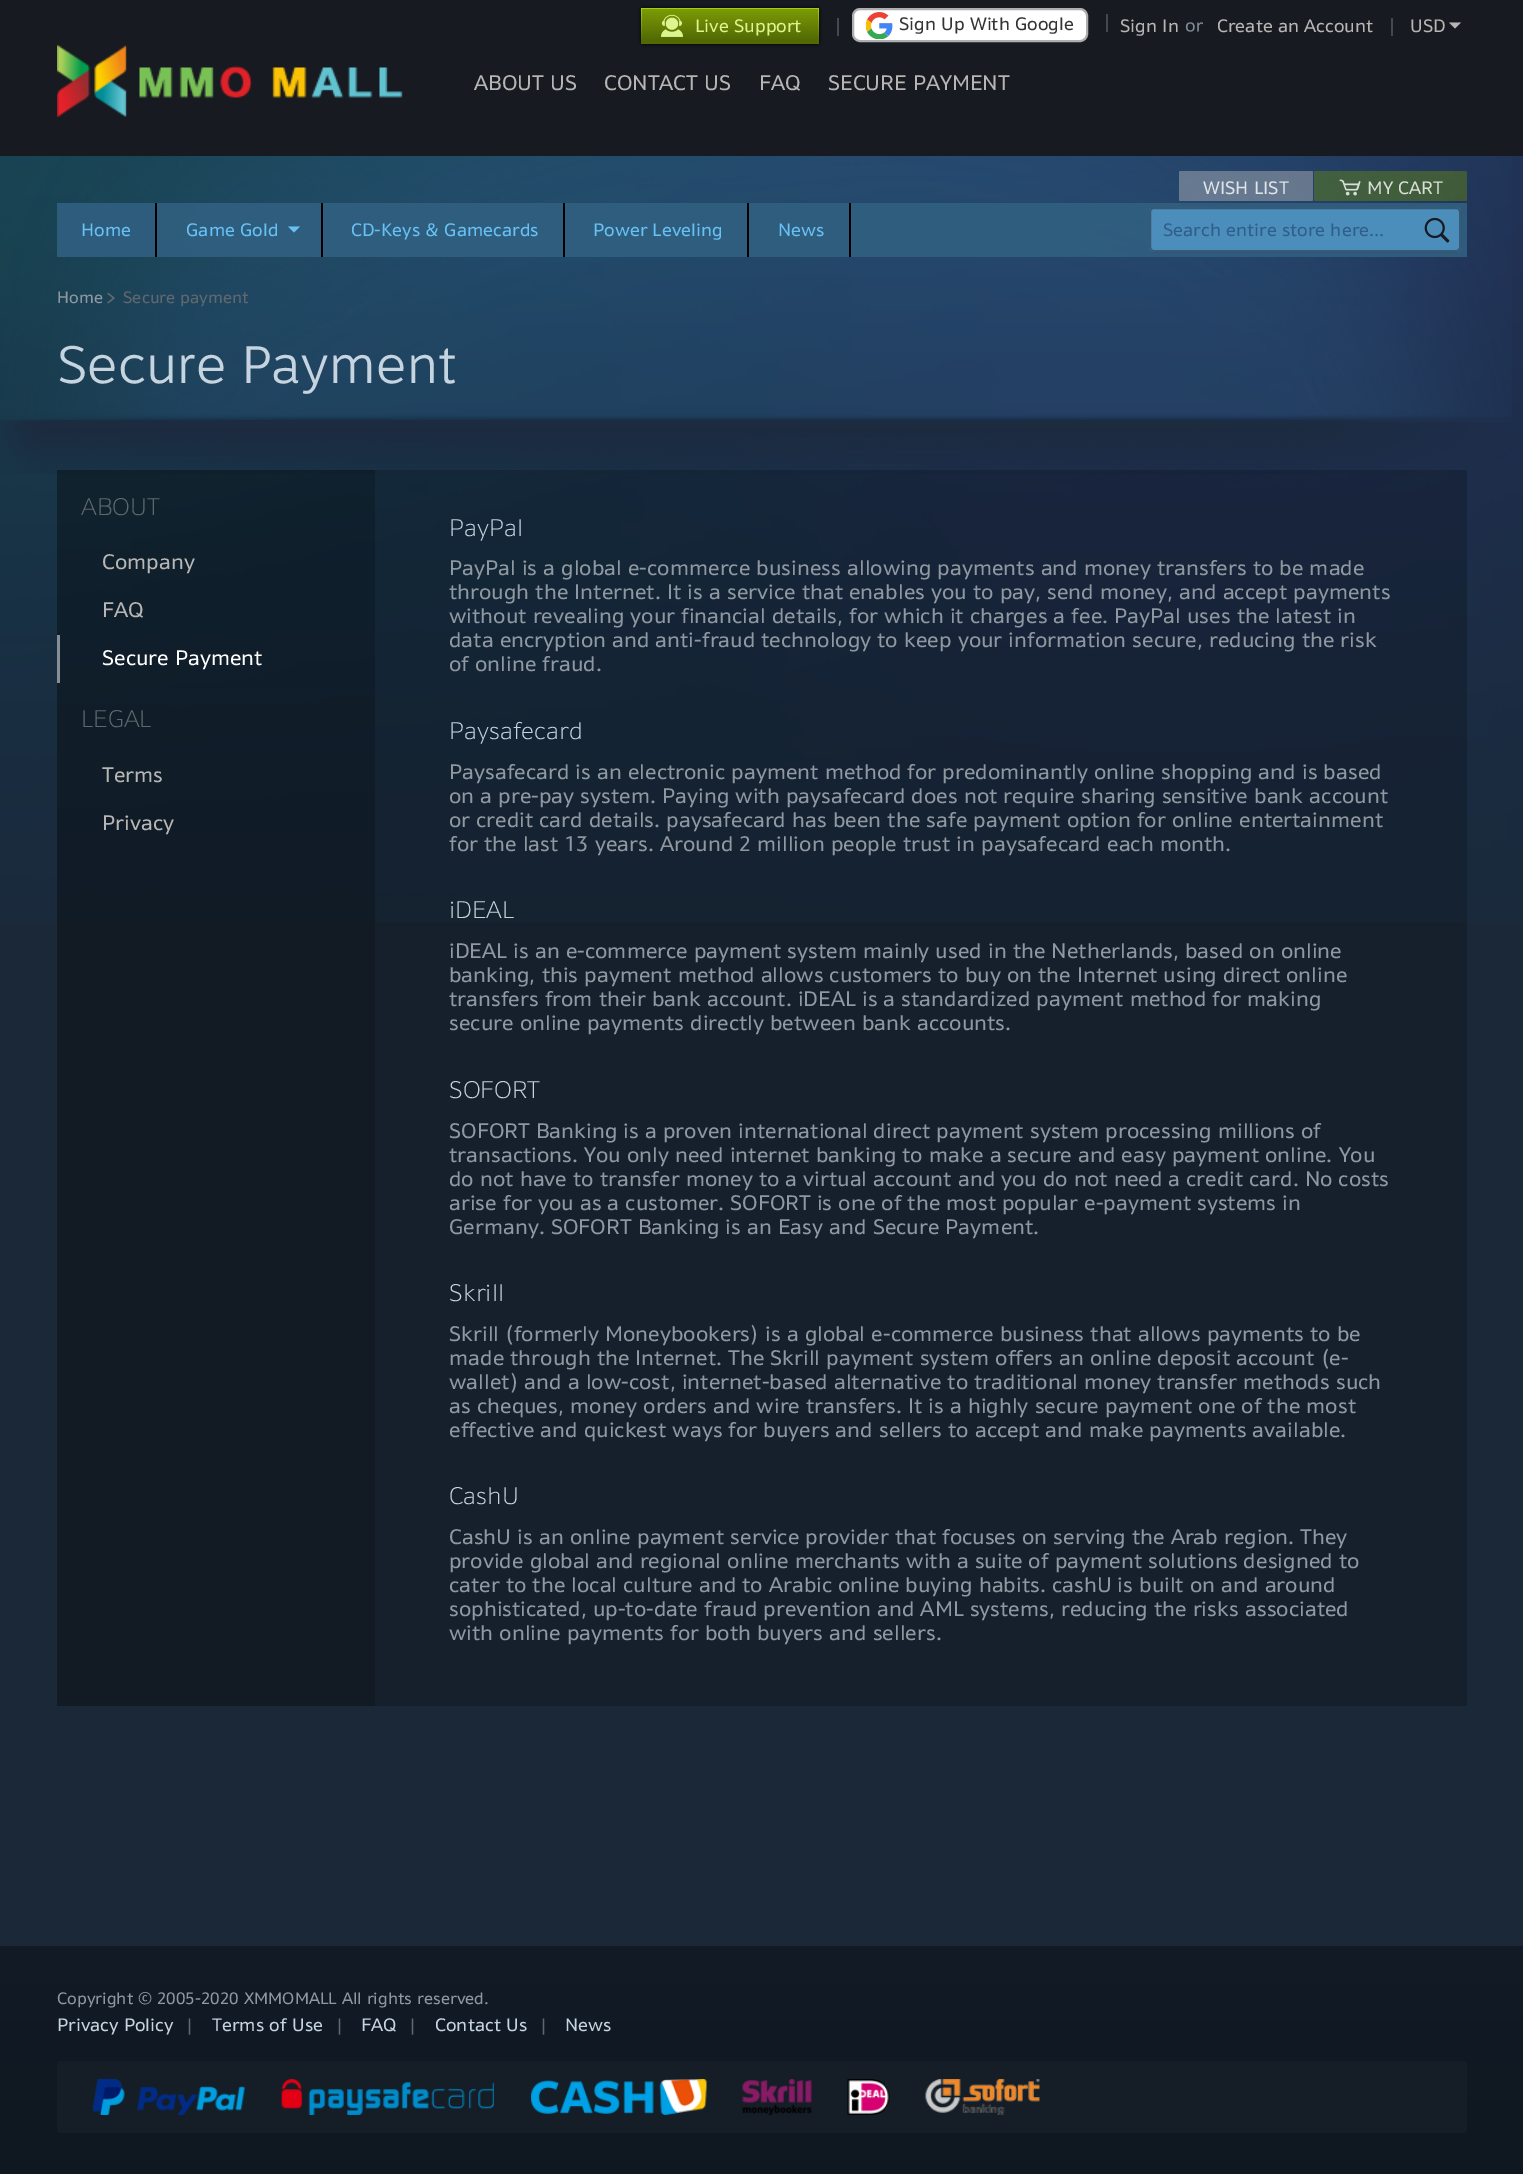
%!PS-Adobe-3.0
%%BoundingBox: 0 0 1523 2174
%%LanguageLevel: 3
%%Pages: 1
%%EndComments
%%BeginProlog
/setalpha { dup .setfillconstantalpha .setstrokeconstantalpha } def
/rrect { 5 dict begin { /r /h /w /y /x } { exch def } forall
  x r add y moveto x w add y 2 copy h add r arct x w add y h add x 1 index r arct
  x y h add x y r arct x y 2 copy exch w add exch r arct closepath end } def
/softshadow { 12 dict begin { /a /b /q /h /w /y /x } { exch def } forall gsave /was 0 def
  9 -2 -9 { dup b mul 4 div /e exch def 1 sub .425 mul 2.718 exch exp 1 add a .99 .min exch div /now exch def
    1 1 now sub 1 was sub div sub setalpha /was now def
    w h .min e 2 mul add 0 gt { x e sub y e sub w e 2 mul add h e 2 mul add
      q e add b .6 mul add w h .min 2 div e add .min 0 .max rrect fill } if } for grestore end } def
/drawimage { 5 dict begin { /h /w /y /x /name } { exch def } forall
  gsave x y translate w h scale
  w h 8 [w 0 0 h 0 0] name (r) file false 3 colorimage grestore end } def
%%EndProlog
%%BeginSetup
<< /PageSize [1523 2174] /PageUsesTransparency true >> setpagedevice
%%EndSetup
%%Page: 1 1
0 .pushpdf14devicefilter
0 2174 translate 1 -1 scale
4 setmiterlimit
0.106 0.157 0.22 setrgbcolor
0 0 1523 2174 rectfill
(images/1.raw) 0 156 1523 767 drawimage
0.09 0.102 0.129 setrgbcolor
0 0 1523 156 rectfill
0 setgray
641 8 178 36 3 2 1 softshadow
gsave 641 8 178 36 3 rrect clip newpath
<< /ShadingType 2 /ColorSpace /DeviceRGB /Coords [730 7.5 730 44] /Extend [true true] /Function << /FunctionType 3 /Domain [0 1] /Functions [<< /FunctionType 2 /Domain [0 1] /C0 [0.643 0.816 0.027] /C1 [0.643 0.816 0.027] /N 1 >> << /FunctionType 2 /Domain [0 1] /C0 [0.643 0.816 0.027] /C1 [0.325 0.412 0.016] /N 1 >> << /FunctionType 2 /Domain [0 1] /C0 [0.325 0.412 0.016] /C1 [0.325 0.412 0.016] /N 1 >>] /Bounds [0.05 0.95] /Encode [0 1 0 1 0 1] >> >> shfill grestore
gsave 642 9 176 33 3 rrect clip newpath
<< /ShadingType 2 /ColorSpace /DeviceRGB /Coords [730 9 730 42] /Extend [true true] /Function << /FunctionType 3 /Domain [0 1] /Functions [<< /FunctionType 2 /Domain [0 1] /C0 [0.475 0.6 0.02] /C1 [0.475 0.6 0.02] /N 1 >> << /FunctionType 2 /Domain [0 1] /C0 [0.475 0.6 0.02] /C1 [0.325 0.412 0.016] /N 1 >> << /FunctionType 2 /Domain [0 1] /C0 [0.325 0.412 0.016] /C1 [0.325 0.412 0.016] /N 1 >>] /Bounds [0.05 0.95] /Encode [0 1 0 1 0 1] >> >> shfill grestore
(images/2.raw) 661 14 22 23 drawimage
0.271 0.282 0.302 setrgbcolor
837 18 2 18 rectfill
1 setgray
853 9 234 32 7 rrect gsave fill grestore
0.682 setgray
2 setlinewidth
stroke
(images/3.raw) 866 12 27 27 drawimage
0.271 0.282 0.302 setrgbcolor
1106 14 2 18 rectfill
(images/4.raw) 1185 22 18 10 drawimage
1391 18 2 18 rectfill
0.722 0.714 0.706 setrgbcolor
newpath 1461 22.5 moveto 1455 28.5 lineto 1449 22.5 lineto closepath fill
(images/5.raw) 57 45 346 72 drawimage
(images/6.raw) 0 156 1512 318 drawimage
0.9 setalpha
0.188 0.373 0.502 setrgbcolor
57 203 1410 54 rectfill
1 setalpha
0 setgray
155 203 2 54 rectfill
321 203 2 54 rectfill
0.404 0.757 0.961 setrgbcolor
newpath 300 226.5 moveto 294 232.5 lineto 288 226.5 lineto closepath fill
0 setgray
563 203 2 54 rectfill
747 203 2 54 rectfill
849 203 2 54 rectfill
0.4 setalpha
0.784 setgray
1179 171 134 30 1.5 rrect fill
0.431 0.569 0.027 setrgbcolor
1314 171 153 30 1.5 rrect fill
1 setalpha
(images/7.raw) 1339 179 22 17 drawimage
0.294 0.557 0.737 setrgbcolor
1149 207 312 45 5 rrect fill
0.7 setalpha
0.184 0.271 0.353 setrgbcolor
1150 208 310 43 4 rrect stroke
1 setalpha
(images/8.raw) 1424 217 26 26 drawimage
(images/9.raw) 107 292 8 12 drawimage
0.2 setalpha
0 setgray
57 470 1410 1236 rectfill
57 470 318 1236 rectfill
1 setalpha
0.529 0.557 0.584 setrgbcolor
57 635 3 48 rectfill
gsave newpath 0 1946 moveto 1523 1946 lineto 1523 2174 lineto 0 2174 lineto closepath clip newpath
<< /ShadingType 2 /ColorSpace /DeviceRGB /Coords [762 1946 762 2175] /Extend [true true] /Function << /FunctionType 2 /Domain [0 1] /C0 [0.071 0.106 0.149] /C1 [0.059 0.09 0.125] /N 1 >> >> shfill grestore
0.082 0.114 0.149 setrgbcolor
57 2061 1410 72 3 rrect fill
(images/10.raw) 93 2079 152 36 drawimage
(images/11.raw) 281 2079 213 36 drawimage
(images/12.raw) 531 2079 176 36 drawimage
(images/13.raw) 742 2079 70 36 drawimage
(images/14.raw) 847 2079 43 36 drawimage
(images/15.raw) 925 2079 115 36 drawimage
/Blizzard-Regular [18 0 0 -18 0 0] selectfont
0.871 0.957 0.557 setrgbcolor
695 32 moveto (Live Support) show
0.2 setgray
899 30 moveto (Sign Up With Google) show
0.722 0.714 0.706 setrgbcolor
1120 32 moveto (Sign In) show
1217 32 moveto (Create an Account) show
1410 32 moveto (USD) show
/Blizzard-Regular [21 0 0 -21 0 0] selectfont
474 90 moveto (ABOUT US) show
604 90 moveto (CONTACT US) show
759 90 moveto (FAQ) show
828 90 moveto (SECURE PAYMENT) show
/Blizzard-Regular [18 0 0 -18 0 0] selectfont
0.404 0.757 0.961 setrgbcolor
81 236 moveto (Home) show
186 236 moveto (Game Gold) show
351 236 moveto (CD-Keys & Gamecards) show
593 236 moveto (Power Leveling) show
778 236 moveto (News) show
0.878 0.894 0.914 setrgbcolor
1203 194 moveto (WISH LIST) show
0.851 0.875 0.847 setrgbcolor
1367 194 moveto (MY CART) show
0.188 0.365 0.541 setrgbcolor
1163 236 moveto (Search entire store here...) show
/Blizzard-Regular [16.5 0 0 -16.5 0 0] selectfont
0.561 0.596 0.627 setrgbcolor
57 303 moveto (Home) show
0.38 0.408 0.427 setrgbcolor
123 303 moveto (Secure payment) show
/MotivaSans-Light [52.5 0 0 -52.5 0 0] selectfont
0.776 0.831 0.875 setrgbcolor
57 383 moveto (Secure Payment) show
/Blizzard-Light [24 0 0 -24 0 0] selectfont
0.38 0.408 0.427 setrgbcolor
81 515 moveto (ABOUT) show
/Blizzard-Regular [21 0 0 -21 0 0] selectfont
0.722 0.714 0.706 setrgbcolor
102 569 moveto (Company) show
102 617 moveto (FAQ) show
1 setgray
102 665 moveto (Secure Payment) show
/Blizzard-Light [24 0 0 -24 0 0] selectfont
0.38 0.408 0.427 setrgbcolor
81 727 moveto (LEGAL) show
/Blizzard-Regular [21 0 0 -21 0 0] selectfont
0.722 0.714 0.706 setrgbcolor
102 782 moveto (Terms) show
102 830 moveto (Privacy) show
/Blizzard-Light [24 0 0 -24 0 0] selectfont
0.776 0.831 0.875 setrgbcolor
449 536 moveto (PayPal) show
/Blizzard-Regular [21 0 0 -21 0 0] selectfont
0.561 0.596 0.627 setrgbcolor
449 575 moveto (PayPal is a global e-commerce business allowing payments and money transfers to be made) show
449 599 moveto (through the Internet. It is a service that enables you to pay, send money, and accept payments) show
449 623 moveto (without revealing your financial details, for which it charges a fee. PayPal uses the latest in) show
449 647 moveto (data encryption and anti-fraud technology to keep your information secure, reducing the risk) show
449 671 moveto (of online fraud.) show
/Blizzard-Light [24 0 0 -24 0 0] selectfont
0.776 0.831 0.875 setrgbcolor
449 739 moveto (Paysafecard) show
/Blizzard-Regular [21 0 0 -21 0 0] selectfont
0.561 0.596 0.627 setrgbcolor
449 779 moveto (Paysafecard is an electronic payment method for predominantly online shopping and is based) show
449 803 moveto (on a pre-pay system. Paying with paysafecard does not require sharing sensitive bank account) show
449 827 moveto (or credit card details. paysafecard has been the safe payment option for online entertainment) show
449 851 moveto (for the last 13 years. Around 2 million people trust in paysafecard each month.) show
/Blizzard-Light [24 0 0 -24 0 0] selectfont
0.776 0.831 0.875 setrgbcolor
449 918 moveto (iDEAL) show
/Blizzard-Regular [21 0 0 -21 0 0] selectfont
0.561 0.596 0.627 setrgbcolor
449 958 moveto (iDEAL is an e-commerce payment system mainly used in the Netherlands, based on online) show
449 982 moveto (banking, this payment method allows customers to buy on the Internet using direct online) show
449 1006 moveto (transfers from their bank account. iDEAL is a standardized payment method for making) show
449 1030 moveto (secure online payments directly between bank accounts.) show
/Blizzard-Light [24 0 0 -24 0 0] selectfont
0.776 0.831 0.875 setrgbcolor
449 1098 moveto (SOFORT) show
/Blizzard-Regular [21 0 0 -21 0 0] selectfont
0.561 0.596 0.627 setrgbcolor
449 1138 moveto (SOFORT Banking is a proven international direct payment system processing millions of) show
449 1162 moveto (transactions. You only need internet banking to make a secure and easy payment online. You) show
449 1186 moveto (do not have to transfer money to a virtual account and you do not need a credit card. No costs) show
449 1210 moveto (arise for you as a customer. SOFORT is one of the most popular e-payment systems in) show
449 1234 moveto (Germany. SOFORT Banking is an Easy and Secure Payment.) show
/Blizzard-Light [24 0 0 -24 0 0] selectfont
0.776 0.831 0.875 setrgbcolor
449 1301 moveto (Skrill) show
/Blizzard-Regular [21 0 0 -21 0 0] selectfont
0.561 0.596 0.627 setrgbcolor
449 1341 moveto (Skrill \(formerly Moneybookers\) is a global e-commerce business that allows payments to be) show
449 1365 moveto (made through the Internet. The Skrill payment system offers an online deposit account \(e-) show
449 1389 moveto (wallet\) and a low-cost, internet-based alternative to traditional money transfer methods such) show
449 1413 moveto (as cheques, money orders and wire transfers. It is a highly secure payment one of the most) show
449 1437 moveto (effective and quickest ways for buyers and sellers to accept and make payments available.) show
/Blizzard-Light [24 0 0 -24 0 0] selectfont
0.776 0.831 0.875 setrgbcolor
449 1504 moveto (CashU) show
/Blizzard-Regular [21 0 0 -21 0 0] selectfont
0.561 0.596 0.627 setrgbcolor
449 1544 moveto (CashU is an online payment service provider that focuses on serving the Arab region. They) show
449 1568 moveto (provide global and regional online merchants with a suite of payment solutions designed to) show
449 1592 moveto (cater to the local culture and to Arabic online buying habits. cashU is built on and around) show
449 1616 moveto (sophisticated, up-to-date fraud prevention and AML systems, reducing the risks associated) show
449 1640 moveto (with online payments for both buyers and sellers.) show
/Blizzard-Regular [16.5 0 0 -16.5 0 0] selectfont
57 2004 moveto (Copyright © 2005-2020 XMMOMALL All rights reserved.) show
/Blizzard-Regular [18 0 0 -18 0 0] selectfont
0.776 0.831 0.875 setrgbcolor
57 2031 moveto (Privacy Policy) show
0.38 0.408 0.427 setrgbcolor
185 2031 moveto (|) show
0.776 0.831 0.875 setrgbcolor
212 2031 moveto (Terms of Use) show
0.38 0.408 0.427 setrgbcolor
335 2031 moveto (|) show
0.776 0.831 0.875 setrgbcolor
361 2031 moveto (FAQ) show
0.38 0.408 0.427 setrgbcolor
408 2031 moveto (|) show
0.776 0.831 0.875 setrgbcolor
435 2031 moveto (Contact Us) show
0.38 0.408 0.427 setrgbcolor
539 2031 moveto (|) show
0.776 0.831 0.875 setrgbcolor
565 2031 moveto (News) show
.poppdf14devicefilter showpage
%%EOF
